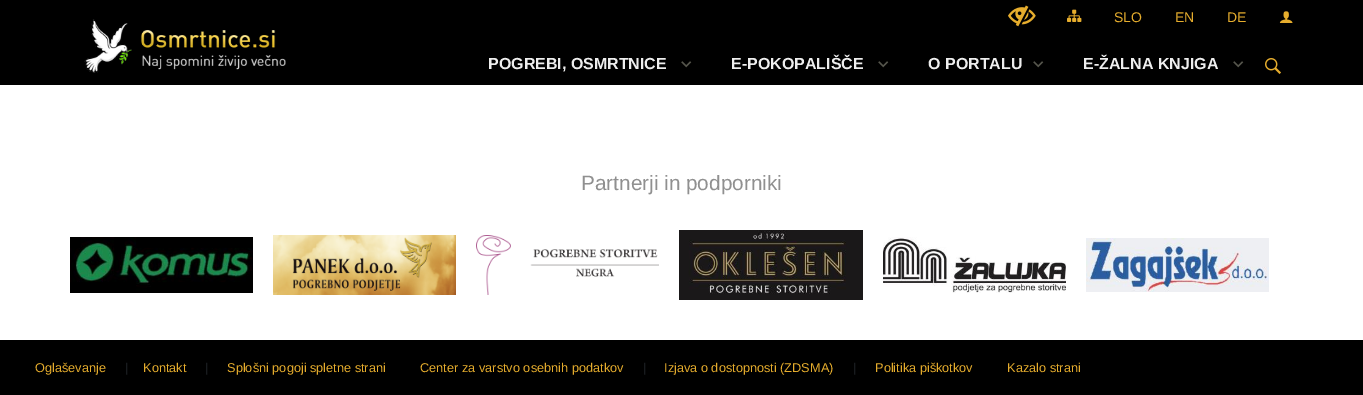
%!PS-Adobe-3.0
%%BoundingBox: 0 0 1363 395
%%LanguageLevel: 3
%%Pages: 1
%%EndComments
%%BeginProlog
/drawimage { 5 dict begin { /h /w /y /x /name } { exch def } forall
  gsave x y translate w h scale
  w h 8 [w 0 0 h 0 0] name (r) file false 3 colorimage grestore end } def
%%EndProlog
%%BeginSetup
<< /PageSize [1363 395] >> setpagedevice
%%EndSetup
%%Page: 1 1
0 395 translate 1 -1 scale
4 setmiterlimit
1 setgray
0 0 1363 395 rectfill
0 setgray
0 0 1363 85 rectfill
(images/1.raw) 1008 5 28 22 drawimage
(images/2.raw) 1067 9 15 13 drawimage
(images/3.raw) 1279 11 14 12 drawimage
(images/4.raw) 84 19 202 54 drawimage
(images/5.raw) 681 61 11 7 drawimage
(images/5.raw) 878 61 11 7 drawimage
(images/5.raw) 1033 61 11 7 drawimage
(images/5.raw) 1233 61 11 7 drawimage
(images/6.raw) 1265 58 16 16 drawimage
(images/7.raw) 70 237 183 56 drawimage
(images/8.raw) 273 235 183 60 drawimage
(images/9.raw) 476 235 183 60 drawimage
(images/10.raw) 679 230 184 70 drawimage
(images/11.raw) 883 237 183 56 drawimage
(images/12.raw) 1086 238 183 54 drawimage
0 340 1363 55 rectfill
/LiberationSans-Regular [14 0 0 -14 0 0] selectfont
0.902 0.678 0.176 setrgbcolor
1114 22 moveto (SLO) show
1175 22 moveto (EN) show
1227 22 moveto (DE) show
/LiberationSans-Bold [16 0 0 -16 0 0] selectfont
0.933 setgray
488 69 moveto (POGREBI, OSMRTNICE) show
731 69 moveto (E-POKOPALIŠČE) show
928 69 moveto (O PORTALU) show
1083 69 moveto (E-ŽALNA KNJIGA) show
/LiberationSans-Regular [20.75 0 0 -20.75 0 0] selectfont
0.565 setgray
581 190 moveto (Partnerji in podporniki) show
/LiberationSans-Regular [12.75 0 0 -12.75 0 0] selectfont
0.902 0.678 0.176 setrgbcolor
35 372 moveto (Oglaševanje) show
0.129 0.145 0.161 setrgbcolor
125 372 moveto (|) show
0.902 0.678 0.176 setrgbcolor
143 372 moveto (Kontakt) show
0.129 0.145 0.161 setrgbcolor
205 372 moveto (|) show
0.902 0.678 0.176 setrgbcolor
227 372 moveto (Splošni pogoji spletne strani) show
420 372 moveto (Center za varstvo osebnih podatkov) show
0.129 0.145 0.161 setrgbcolor
643 372 moveto (|) show
0.902 0.678 0.176 setrgbcolor
664 372 moveto (Izjava o dostopnosti \(ZDSMA\)) show
0.129 0.145 0.161 setrgbcolor
853 372 moveto (|) show
0.902 0.678 0.176 setrgbcolor
875 372 moveto (Politika piškotkov) show
1007 372 moveto (Kazalo strani) show
showpage
%%EOF
